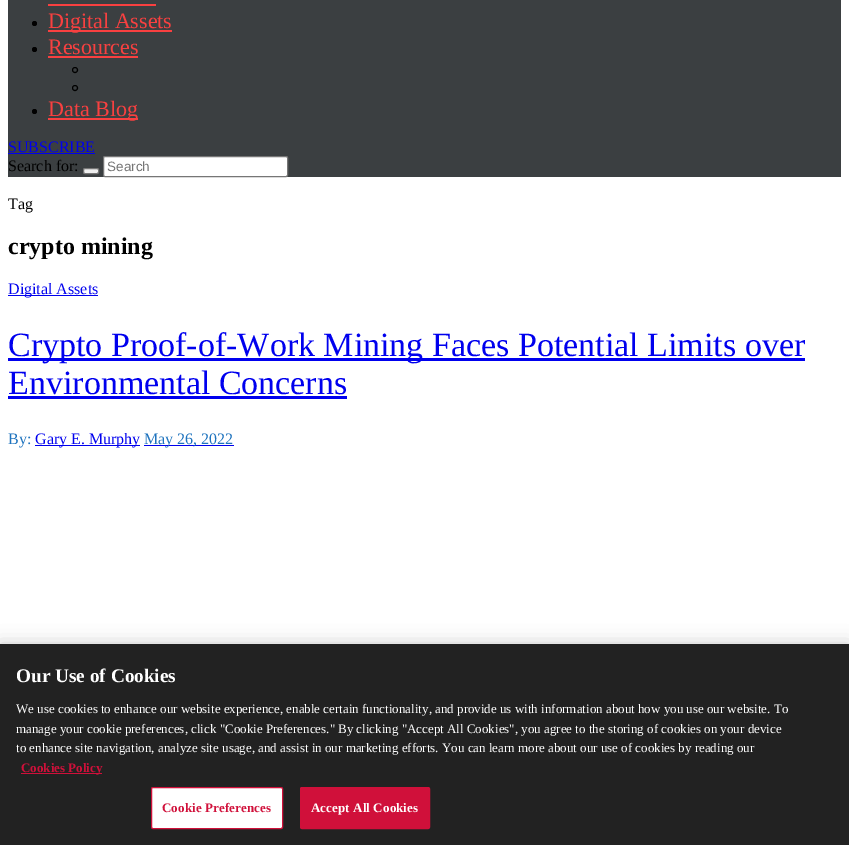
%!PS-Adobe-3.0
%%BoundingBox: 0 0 849 845
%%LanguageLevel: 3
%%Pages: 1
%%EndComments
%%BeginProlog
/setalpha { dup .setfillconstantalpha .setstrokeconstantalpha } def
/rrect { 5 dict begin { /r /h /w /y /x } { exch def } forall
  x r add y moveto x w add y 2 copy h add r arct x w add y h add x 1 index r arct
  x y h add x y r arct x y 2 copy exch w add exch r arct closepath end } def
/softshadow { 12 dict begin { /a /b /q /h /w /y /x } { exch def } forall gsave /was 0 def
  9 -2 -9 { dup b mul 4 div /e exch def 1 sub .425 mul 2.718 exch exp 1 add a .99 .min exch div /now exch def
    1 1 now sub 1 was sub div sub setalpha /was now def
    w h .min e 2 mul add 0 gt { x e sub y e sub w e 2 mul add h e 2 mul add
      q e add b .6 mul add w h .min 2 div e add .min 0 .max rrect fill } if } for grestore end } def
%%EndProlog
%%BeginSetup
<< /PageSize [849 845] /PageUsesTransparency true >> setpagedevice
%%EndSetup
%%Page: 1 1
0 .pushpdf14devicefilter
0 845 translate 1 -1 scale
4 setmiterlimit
1 setgray
0 0 849 845 rectfill
0.231 0.247 0.255 setrgbcolor
8 0 833 177 rectfill
0.976 0.251 0.251 setrgbcolor
48 4 108 2 rectfill
0 setgray
newpath 34.5 23.5 2.5 0 360 arc closepath fill
0.976 0.251 0.251 setrgbcolor
48 30 124 2 rectfill
0 setgray
newpath 34.5 49.5 2.5 0 360 arc closepath fill
0.976 0.251 0.251 setrgbcolor
48 56 90 2 rectfill
0 setgray
newpath 75 70 2.5 0 360 arc closepath stroke
newpath 75 88 2.5 0 360 arc closepath stroke
newpath 34.5 111.5 2.5 0 360 arc closepath fill
0.976 0.251 0.251 setrgbcolor
48 118 90 2 rectfill
0 0 0.933 setrgbcolor
8 153 87 1 rectfill
0.937 setgray
83.5 168.5 15 5 1.5 rrect gsave fill grestore
0.463 setgray
stroke
1 setgray
103.5 156.5 184 20 1.5 rrect gsave fill grestore
0.463 setgray
stroke
0 0 0.933 setrgbcolor
8 295 90 1 rectfill
8 358 797 3 rectfill
8 396 339 3 rectfill
35 445 105 1 rectfill
144 445 90 1 rectfill
0 setgray
0 644 849 201 0 9 0.2 softshadow
0.133 setgray
0 644 849 201 rectfill
0.816 0.063 0.227 setrgbcolor
21 773 81 1 rectfill
1 setgray
151.5 787.5 131 41 1.5 rrect gsave fill grestore
0.816 0.063 0.227 setrgbcolor
stroke
300.5 787.5 129 41 1.5 rrect gsave fill grestore
stroke
/LiberationSerif-Regular [22 0 0 -22 0 0] selectfont
0.976 0.251 0.251 setrgbcolor
48 28 moveto (Digital Assets) show
48 54 moveto (Resources) show
48 116 moveto (Data Blog) show
/LiberationSerif-Regular [16 0 0 -16 0 0] selectfont
0 0 0.933 setrgbcolor
8 152 moveto (SUBSCRIBE) show
0 setgray
8 171 moveto (Search for:) show
/LiberationSans-Regular [13.5 0 0 -13.5 0 0] selectfont
0.459 setgray
107 171 moveto (Search) show
/LiberationSerif-Regular [16 0 0 -16 0 0] selectfont
0 setgray
8 209 moveto (Tag) show
/LiberationSerif-Bold [24 0 0 -24 0 0] selectfont
8 254 moveto (crypto mining) show
/LiberationSerif-Regular [16 0 0 -16 0 0] selectfont
0 0 0.933 setrgbcolor
8 294 moveto (Digital Assets) show
/LiberationSerif-Regular [34 0 0 -34 0 0] selectfont
8 356 moveto (Crypto Proof-of-Work Mining Faces Potential Limits over) show
8 394 moveto (Environmental Concerns) show
/LiberationSerif-Regular [16 0 0 -16 0 0] selectfont
0.118 0.451 0.745 setrgbcolor
8 444 moveto (By:) show
0 0 0.933 setrgbcolor
35 444 moveto (Gary E. Murphy) show
0.118 0.451 0.745 setrgbcolor
144 444 moveto (May 26, 2022) show
/LiberationSerif-Bold [19.25 0 0 -19.25 0 0] selectfont
1 setgray
16 682 moveto (Our Use of Cookies) show
/LiberationSerif-Regular [13 0 0 -13 0 0] selectfont
16 713 moveto (We use cookies to enhance our website experience, enable certain functionality, and provide us with information about how you use our website. To) show
16 733 moveto (manage your cookie preferences, click "Cookie Preferences." By clicking "Accept All Cookies", you agree to the storing of cookies on your device) show
16 752 moveto (to enhance site navigation, analyze site usage, and assist in our marketing efforts. You can learn more about our use of cookies by reading our) show
/LiberationSerif-Bold [13 0 0 -13 0 0] selectfont
0.816 0.063 0.227 setrgbcolor
21 772 moveto (Cookies Policy) show
162 812 moveto 0.1 0 (Cookie Preferences) ashow
1 setgray
311 812 moveto 0.1 0 (Accept All Cookies) ashow
.poppdf14devicefilter showpage
%%EOF
